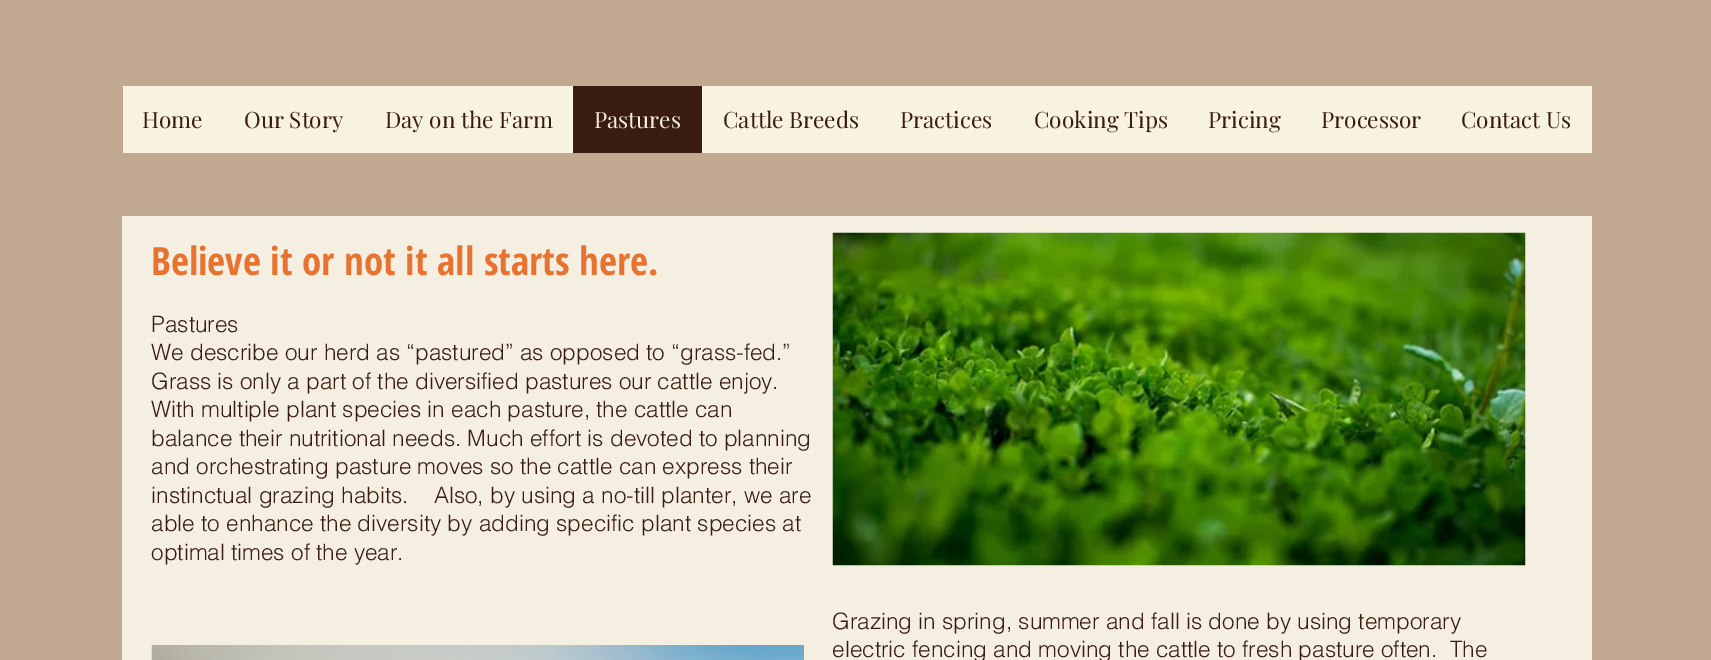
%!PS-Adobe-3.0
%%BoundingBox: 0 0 1711 660
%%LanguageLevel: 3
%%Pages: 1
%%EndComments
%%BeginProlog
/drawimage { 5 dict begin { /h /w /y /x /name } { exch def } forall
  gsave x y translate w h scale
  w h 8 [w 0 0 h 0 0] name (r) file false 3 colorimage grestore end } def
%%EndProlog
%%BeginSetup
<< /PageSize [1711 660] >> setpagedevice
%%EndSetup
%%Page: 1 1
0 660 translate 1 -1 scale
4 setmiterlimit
0.753 0.659 0.569 setrgbcolor
0 0 1711 660 rectfill
0.969 0.949 0.886 setrgbcolor
123 86 1469 67 rectfill
0.227 0.11 0.075 setrgbcolor
573 86 129 67 rectfill
0.957 0.937 0.882 setrgbcolor
122 216 1470 444 rectfill
(images/1.raw) 832 232 694 334 drawimage
(images/2.raw) 151 645 653 15 drawimage
/PlayfairDisplay-Regular [22.5 0 0 -22.5 0 0] selectfont
0.227 0.11 0.075 setrgbcolor
142 128 moveto (Home) show
244 128 moveto (Our Story) show
385 128 moveto (Day on the Farm) show
0.957 0.937 0.882 setrgbcolor
594 128 moveto (Pastures) show
0.227 0.11 0.075 setrgbcolor
723 128 moveto (Cattle Breeds) show
900 128 moveto (Practices) show
1034 128 moveto (Cooking Tips) show
1208 128 moveto (Pricing) show
1321 128 moveto (Processor) show
1461 128 moveto (Contact Us) show
/OpenSansCondensed-Bold [39 0 0 -39 0 0] selectfont
0.91 0.451 0.188 setrgbcolor
151 275 moveto (Believe it or not it all starts here.) show
/helvetica-Light [22.5 0 0 -22.5 0 0] selectfont
0.227 0.11 0.075 setrgbcolor
151 332 moveto (Pastures) show
151 360 moveto (We describe our herd as “pastured” as opposed to “grass-fed.”) show
151 389 moveto (Grass is only a part of the diversified pastures our cattle enjoy.) show
151 417 moveto (With multiple plant species in each pasture, the cattle can) show
151 446 moveto (balance their nutritional needs. Much effort is devoted to planning) show
151 474 moveto (and orchestrating pasture moves so the cattle can express their) show
151 503 moveto (instinctual grazing habits.    Also, by using a no-till planter, we are) show
151 531 moveto (able to enhance the diversity by adding specific plant species at) show
151 560 moveto (optimal times of the year.) show
832 629 moveto (Grazing in spring, summer and fall is done by using temporary) show
832 657 moveto (electric fencing and moving the cattle to fresh pasture often.  The) show
showpage
%%EOF
